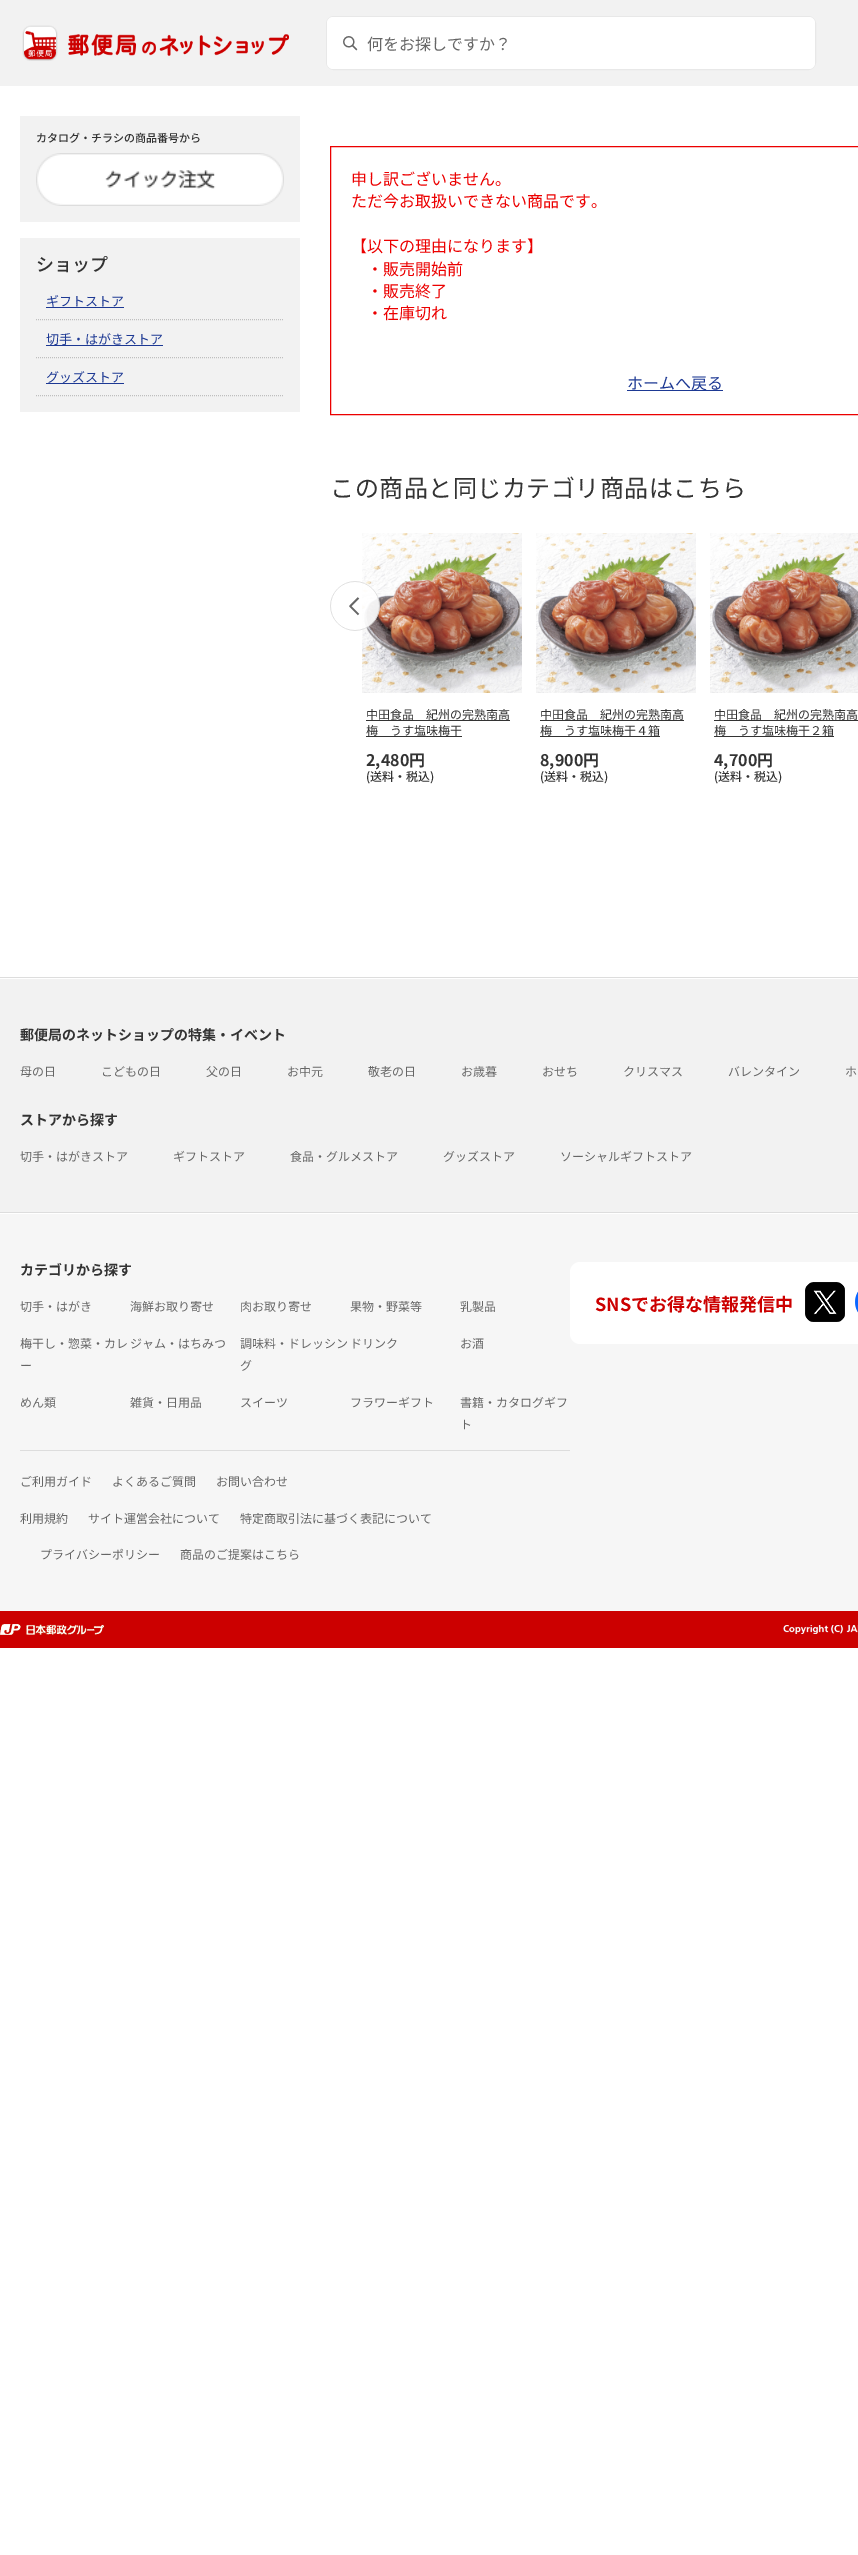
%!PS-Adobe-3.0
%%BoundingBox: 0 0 858 2555
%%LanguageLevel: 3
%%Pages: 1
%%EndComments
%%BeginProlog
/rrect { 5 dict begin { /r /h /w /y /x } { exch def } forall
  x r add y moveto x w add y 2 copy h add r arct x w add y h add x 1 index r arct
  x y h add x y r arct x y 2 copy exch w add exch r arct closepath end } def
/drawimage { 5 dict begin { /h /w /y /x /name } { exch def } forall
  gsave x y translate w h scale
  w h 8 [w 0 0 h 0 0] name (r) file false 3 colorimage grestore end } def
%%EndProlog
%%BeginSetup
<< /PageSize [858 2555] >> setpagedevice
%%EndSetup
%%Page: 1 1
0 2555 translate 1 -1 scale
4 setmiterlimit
1 setgray
0 0 858 2555 rectfill
0.949 setgray
0 0 858 86 rectfill
(images/1.raw) 22 25 267 36 drawimage
0.91 setgray
326.5 16.5 489 53 7.5 rrect stroke
1 setgray
327 17 488 52 6 rrect fill
(images/2.raw) 343 36 15 15 drawimage
0.949 setgray
20 116 280 106 rectfill
(images/3.raw) 36 153 248 53 drawimage
20 238 280 174 rectfill
0.749 setgray
[1 1] 0 setdash
newpath 36 319.5 moveto 284 319.5 lineto stroke
0.114 0.224 0.58 setrgbcolor
46 307 78 1 rectfill
0.749 setgray
newpath 36 357.5 moveto 284 357.5 lineto stroke
0.114 0.224 0.58 setrgbcolor
46 345 117 1 rectfill
0.749 setgray
newpath 36 395.5 moveto 284 395.5 lineto stroke
0.114 0.224 0.58 setrgbcolor
46 383 78 1 rectfill
0.925 0 0 setrgbcolor
[] 0 setdash
330.5 146.5 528 268 rectstroke
0.114 0.224 0.58 setrgbcolor
627 390 96 1 rectfill
(images/5.raw) 362 533 160 160 drawimage
(images/4.raw) 330 581 50 50 drawimage
0.2 setgray
366 720 144 1 rectfill
366 736 96 1 rectfill
(images/5.raw) 536 533 160 160 drawimage
540 720 144 1 rectfill
540 736 120 1 rectfill
(images/6.raw) 710 533 148 160 drawimage
714 720 144 1 rectfill
714 736 120 1 rectfill
0.949 setgray
0 979 858 233 rectfill
(images/7.raw) 0 977 858 2 drawimage
0.965 setgray
0 1214 858 397 rectfill
(images/7.raw) 0 1212 858 2 drawimage
0.867 setgray
20 1450 550 1 rectfill
1 setgray
570 1262 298 82 10 rrect fill
(images/8.raw) 805 1282 40 40 drawimage
(images/9.raw) 855 1291 3 22 drawimage
0.8 0 0 setrgbcolor
0 1611 858 37 rectfill
(images/10.raw) 0 1624 104 11 drawimage
(images/11.raw) 783 1625 75 9 drawimage
/NotoSansJP-Regular [16 0 0 -16 0 0] selectfont
0.4 setgray
367 50 moveto (何をお探しですか？) show
/NotoSansJP-Medium [11 0 0 -11 0 0] selectfont
0.2 setgray
36 142 moveto (カタログ・チラシの商品番号から) show
/NotoSansJP-Medium [18 0 0 -18 0 0] selectfont
36 271 moveto (ショップ) show
/NotoSansJP-Regular [13 0 0 -13 0 0] selectfont
0.114 0.224 0.58 setrgbcolor
46 306 moveto (ギフトストア) show
46 344 moveto (切手・はがきストア) show
46 382 moveto (グッズストア) show
/NotoSansJP-Regular [16 0 0 -16 0 0] selectfont
0.925 0 0 setrgbcolor
351 185 moveto (申し訳ございません。) show
351 207 moveto (ただ今お取扱いできない商品です。) show
351 252 moveto (【以下の理由になります】) show
367 275 moveto (・販売開始前) show
367 297 moveto (・販売終了) show
367 319 moveto (・在庫切れ) show
0.114 0.224 0.58 setrgbcolor
627 389 moveto (ホームへ戻る) show
/NotoSansJP-Regular [24 0 0 -24 0 0] selectfont
0.2 setgray
330 497 moveto 0.5 0 (この商品と同じカテゴリ商品はこちら) ashow
/NotoSansJP-Regular [12 0 0 -12 0 0] selectfont
366 719 moveto (中田食品　紀州の完熟南高) show
366 735 moveto (梅　うす塩味梅干) show
/NotoSansJP-Bold [16 0 0 -16 0 0] selectfont
366 766 moveto (2,480円) show
/NotoSansJP-Medium [12 0 0 -12 0 0] selectfont
366 781 moveto (\(送料・税込\)) show
/NotoSansJP-Regular [12 0 0 -12 0 0] selectfont
540 719 moveto (中田食品　紀州の完熟南高) show
540 735 moveto (梅　うす塩味梅干４箱) show
/NotoSansJP-Bold [16 0 0 -16 0 0] selectfont
540 766 moveto (8,900円) show
/NotoSansJP-Medium [12 0 0 -12 0 0] selectfont
540 781 moveto (\(送料・税込\)) show
/NotoSansJP-Regular [12 0 0 -12 0 0] selectfont
714 719 moveto (中田食品　紀州の完熟南高) show
714 735 moveto (梅　うす塩味梅干２箱) show
/NotoSansJP-Bold [16 0 0 -16 0 0] selectfont
714 766 moveto (4,700円) show
/NotoSansJP-Medium [12 0 0 -12 0 0] selectfont
714 781 moveto (\(送料・税込\)) show
/NotoSansJP-Bold [14 0 0 -14 0 0] selectfont
20 1040 moveto (郵便局のネットショップの特集・イベント) show
/NotoSansJP-Regular [12 0 0 -12 0 0] selectfont
0.4 setgray
20 1076 moveto (母の日) show
101 1076 moveto (こどもの日) show
206 1076 moveto (父の日) show
287 1076 moveto (お中元) show
368 1076 moveto (敬老の日) show
461 1076 moveto (お歳暮) show
542 1076 moveto (おせち) show
623 1076 moveto (クリスマス) show
728 1076 moveto (バレンタイン) show
845 1076 moveto (ホ) show
/NotoSansJP-Bold [14 0 0 -14 0 0] selectfont
0.2 setgray
20 1125 moveto (ストアから探す) show
/NotoSansJP-Regular [12 0 0 -12 0 0] selectfont
0.4 setgray
20 1161 moveto (切手・はがきストア) show
173 1161 moveto (ギフトストア) show
290 1161 moveto (食品・グルメストア) show
443 1161 moveto (グッズストア) show
560 1161 moveto (ソーシャルギフトストア) show
/NotoSansJP-Bold [14 0 0 -14 0 0] selectfont
0.2 setgray
20 1275 moveto (カテゴリから探す) show
/NotoSansJP-Regular [12 0 0 -12 0 0] selectfont
0.4 setgray
20 1311 moveto (切手・はがき) show
130 1311 moveto (海鮮お取り寄せ) show
240 1311 moveto (肉お取り寄せ) show
350 1311 moveto (果物・野菜等) show
460 1311 moveto (乳製品) show
20 1348 moveto (梅干し・惣菜・カレ) show
20 1370 moveto (ー) show
130 1348 moveto (ジャム・はちみつ) show
240 1348 moveto (調味料・ドレッシン) show
240 1370 moveto (グ) show
350 1348 moveto (ドリンク) show
460 1348 moveto (お酒) show
20 1407 moveto (めん類) show
130 1407 moveto (雑貨・日用品) show
240 1407 moveto (スイーツ) show
350 1407 moveto (フラワーギフト) show
460 1407 moveto (書籍・カタログギフ) show
460 1429 moveto (ト) show
20 1486 moveto (ご利用ガイド) show
112 1486 moveto (よくあるご質問) show
216 1486 moveto (お問い合わせ) show
20 1523 moveto (利用規約) show
88 1523 moveto (サイト運営会社について) show
240 1523 moveto (特定商取引法に基づく表記について) show
40 1559 moveto (プライバシーポリシー) show
180 1559 moveto (商品のご提案はこちら) show
/NotoSansJP-Bold [18 0 0 -18 0 0] selectfont
0.8 0 0 setrgbcolor
595 1311 moveto (SNSでお得な情報発信中) show
showpage
%%EOF
